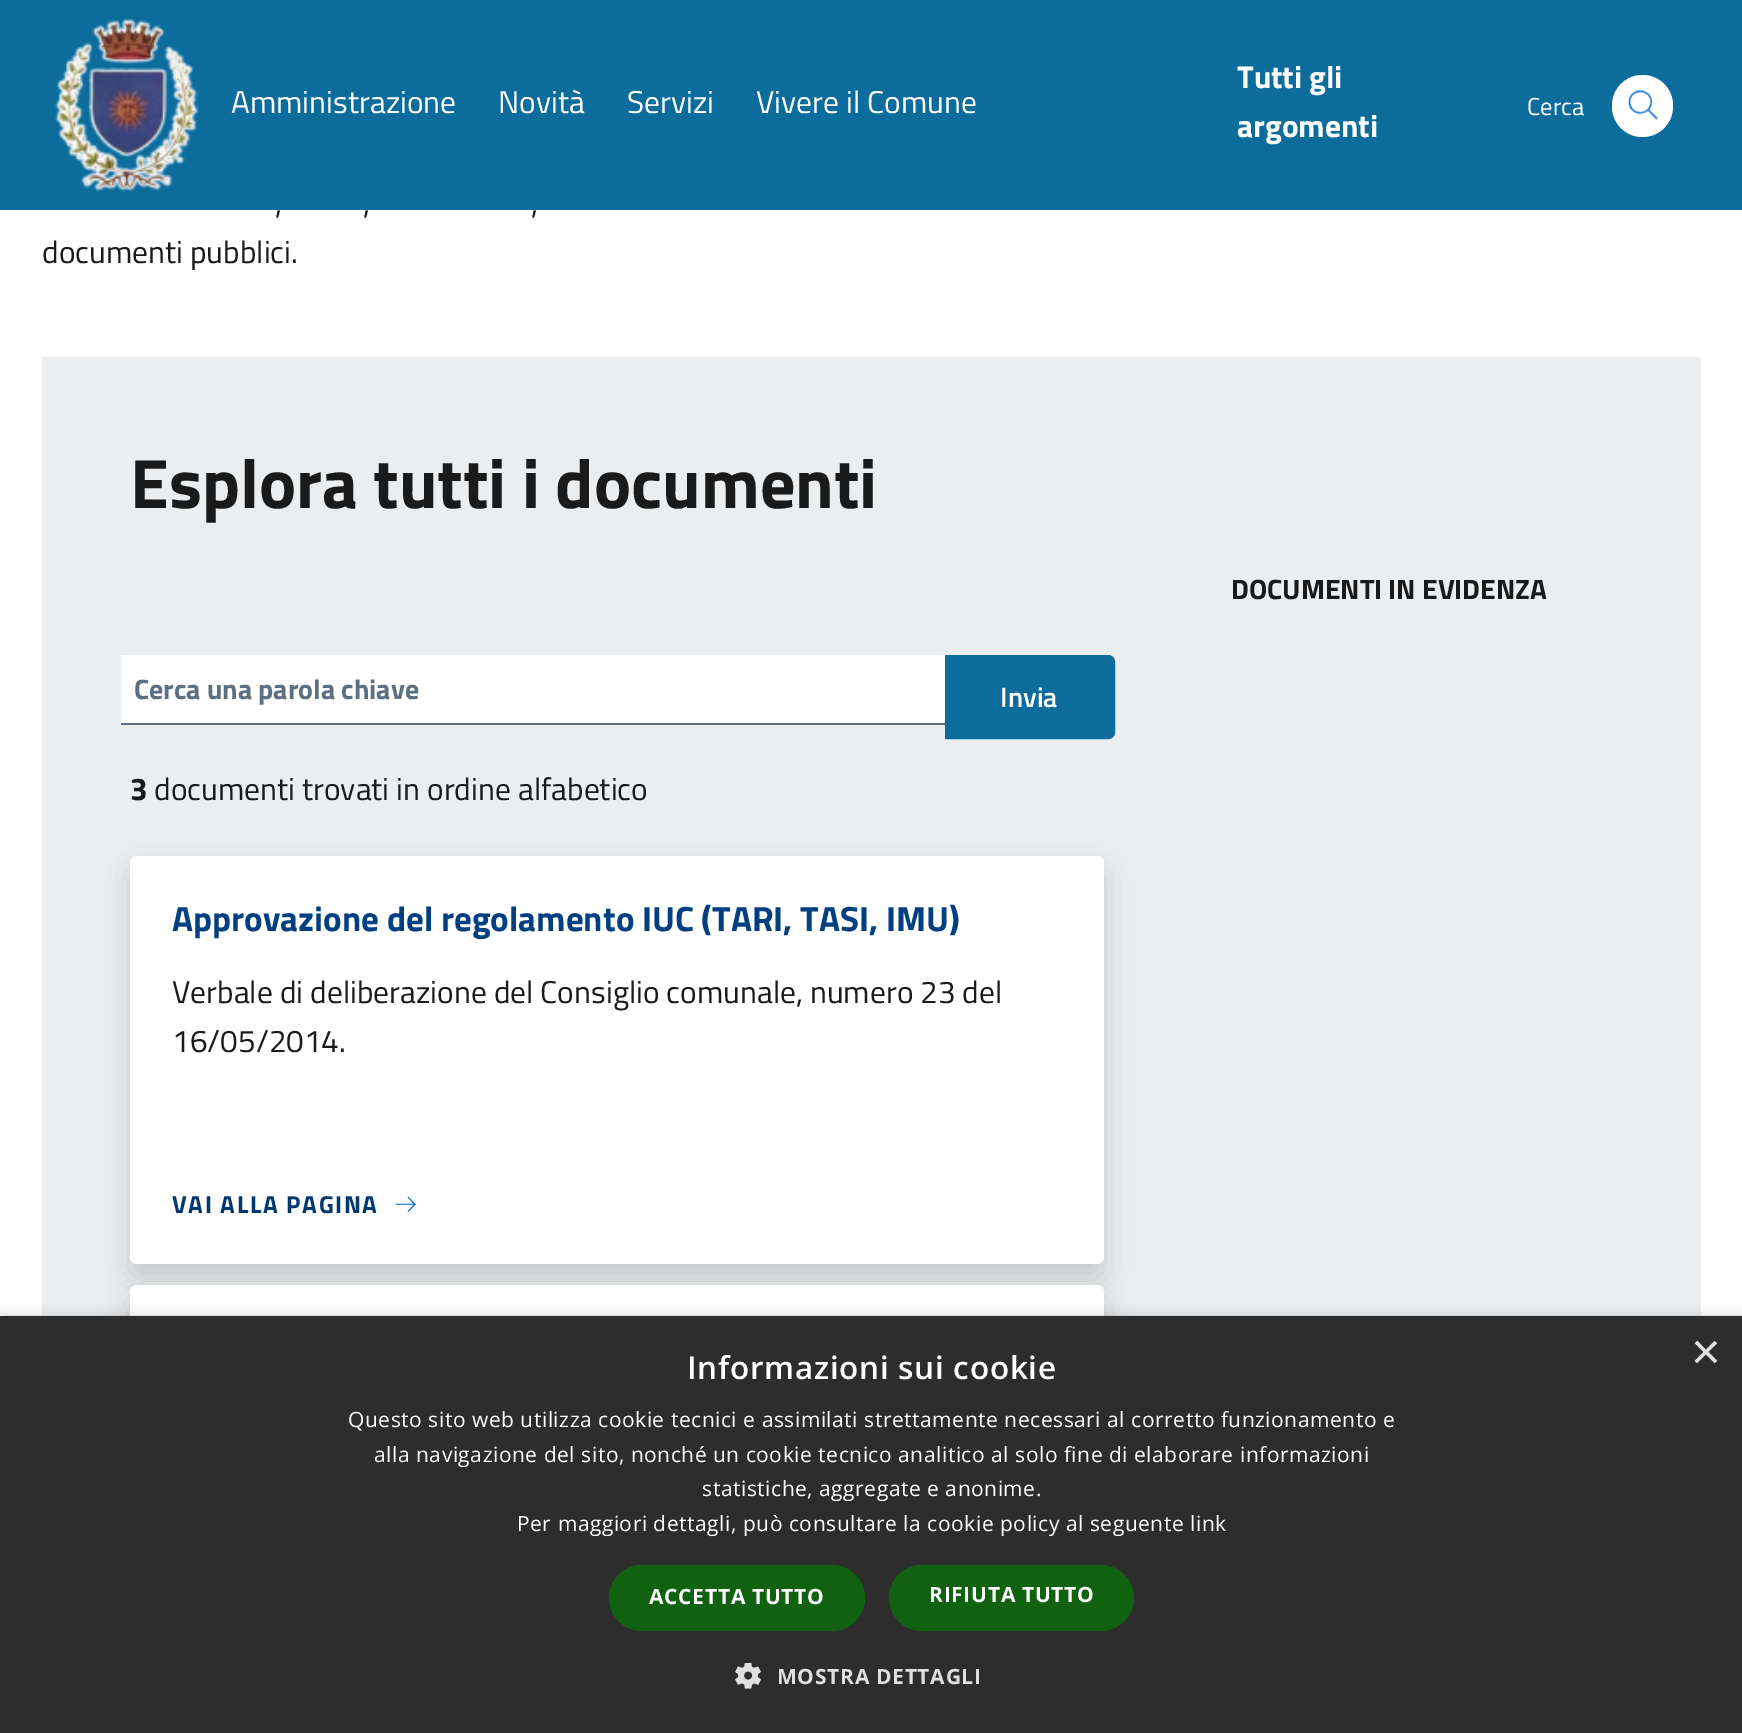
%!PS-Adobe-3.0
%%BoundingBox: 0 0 1742 1733
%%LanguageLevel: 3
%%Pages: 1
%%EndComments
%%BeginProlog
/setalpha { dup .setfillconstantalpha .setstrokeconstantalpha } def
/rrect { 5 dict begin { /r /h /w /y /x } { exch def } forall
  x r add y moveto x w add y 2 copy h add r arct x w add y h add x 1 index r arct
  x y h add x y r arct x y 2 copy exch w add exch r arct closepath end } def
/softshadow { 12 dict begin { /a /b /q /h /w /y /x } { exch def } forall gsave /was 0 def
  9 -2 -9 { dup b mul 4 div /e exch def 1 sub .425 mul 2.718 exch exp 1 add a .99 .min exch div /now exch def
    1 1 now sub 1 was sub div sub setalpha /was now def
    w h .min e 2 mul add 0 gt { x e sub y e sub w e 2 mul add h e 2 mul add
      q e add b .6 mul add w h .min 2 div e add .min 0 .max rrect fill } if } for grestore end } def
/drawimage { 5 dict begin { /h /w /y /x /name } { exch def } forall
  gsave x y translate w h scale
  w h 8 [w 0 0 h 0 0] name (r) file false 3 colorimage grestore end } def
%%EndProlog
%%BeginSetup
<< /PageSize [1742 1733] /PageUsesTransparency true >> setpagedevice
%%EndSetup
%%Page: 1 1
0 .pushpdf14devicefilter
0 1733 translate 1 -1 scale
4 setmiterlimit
1 setgray
0 0 1742 1733 rectfill
0.047 0.424 0.612 setrgbcolor
0 0 1742 210 rectfill
(images/1.raw) 55 19 144 173 drawimage
1 setgray
1612 75 61 62 30.5 rrect fill
(images/2.raw) 1628 90 30 30 drawimage
0.922 0.933 0.941 setrgbcolor
42 357 1659 959 rectfill
1 setgray
121 655 824 68 rectfill
0.361 0.435 0.51 setrgbcolor
121 723 824 2 rectfill
0.047 0.424 0.612 setrgbcolor
newpath 947 657 moveto 1108 657 lineto 1111 657 1113 659 1113 662 curveto 1113 732 lineto 1113 735 1111 737 1108 737 curveto 947 737 lineto closepath gsave fill grestore
4 setlinewidth
stroke
0 setgray
130 870 974 408 7 14 0.15 softshadow
1 setgray
130 856 974 408 7 rrect fill
(images/3.raw) 395 1196 21 16 drawimage
0 setgray
130 1299 974 358 7 14 0.15 softshadow
1 setgray
130 1285 974 358 7 rrect fill
0 setgray
2 1320 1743 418 0 7 0.35 softshadow
0.176 setgray
0 1316 1742 417 rectfill
0.063 0.38 0.063 setrgbcolor
609 1565 256 66 33 rrect fill
889 1565 245 66 33 rrect fill
(images/4.raw) 735 1663 26 26 drawimage
/TitilliumWeb-Regular [31.5 0 0 -31.5 0 0] selectfont
1 setgray
231 113 moveto (Amministrazione) show
498 113 moveto (Novità) show
627 113 moveto (Servizi) show
756 113 moveto (Vivere il Comune) show
/TitilliumWeb-Bold [31.5 0 0 -31.5 0 0] selectfont
1237 88 moveto (Tutti gli) show
1237 137 moveto (argomenti) show
/TitilliumWeb-Regular [24.5 0 0 -24.5 0 0] selectfont
1527 115 moveto (Cerca) show
/TitilliumWeb-Regular [31.5 0 0 -31.5 0 0] selectfont
0.102 setgray
275 214 moveto (,) show
363 214 moveto (,) show
531 214 moveto (,) show
42 263 moveto (documenti pubblici.) show
/TitilliumWeb-Bold [70 0 0 -70 0 0] selectfont
130 508 moveto (Esplora tutti i documenti) show
/TitilliumWeb-Bold [28 0 0 -28 0 0] selectfont
1231 599 moveto (DOCUMENTI IN EVIDENZA) show
0.365 0.439 0.514 setrgbcolor
134 699 moveto (Cerca una parola chiave) show
/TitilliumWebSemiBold-SemiBold [28 0 0 -28 0 0] selectfont
1 setgray
1000 707 moveto (Invia) show
/TitilliumWeb-Bold [31.5 0 0 -31.5 0 0] selectfont
0.102 setgray
130 800 moveto (3) show
/TitilliumWeb-Regular [31.5 0 0 -31.5 0 0] selectfont
154 800 moveto (documenti trovati in ordine alfabetico) show
/TitilliumWeb-Bold [35 0 0 -35 0 0] selectfont
0 0.251 0.502 setrgbcolor
172 931 moveto (Approvazione del regolamento IUC \(TARI, TASI, IMU\)) show
/TitilliumWeb-Regular [31.5 0 0 -31.5 0 0] selectfont
0.102 setgray
172 1003 moveto (Verbale di deliberazione del Consiglio comunale, numero 23 del) show
172 1052 moveto (16/05/2014.) show
/TitilliumWeb-Bold [24.5 0 0 -24.5 0 0] selectfont
0 0.224 0.431 setrgbcolor
172 1213 moveto 1.6 0 (VAI ALLA PAGINA) ashow
/OpenSans-SemiBold [31.5 0 0 -31.5 0 0] selectfont
1 setgray
687 1379 moveto 0.7 0 (Informazioni sui cookie) ashow
/LiberationSans-Regular [51 0 0 -51 0 0] selectfont
0.878 setgray
1691 1369 moveto (×) show
/OpenSans-Regular [21 0 0 -21 0 0] selectfont
1 setgray
348 1427 moveto 0.53 0 (Questo sito web utilizza cookie tecnici e assimilati strettamente necessari al corretto funzionamento e) ashow
374 1462 moveto 0.53 0 (alla navigazione del sito, nonché un cookie tecnico analitico al solo fine di elaborare informazioni) ashow
702 1496 moveto 0.53 0 (statistiche, aggregate e anonime.) ashow
517 1531 moveto 0.53 0 (Per maggiori dettagli, può consultare la cookie policy al seguente link) ashow
/OpenSans-Bold [21 0 0 -21 0 0] selectfont
649 1604 moveto 0.7 0 (ACCETTA TUTTO) ashow
929 1602 moveto 0.7 0 (RIFIUTA TUTTO) ashow
0.878 setgray
777 1684 moveto 0.7 0 (MOSTRA DETTAGLI) ashow
.poppdf14devicefilter showpage
%%EOF
